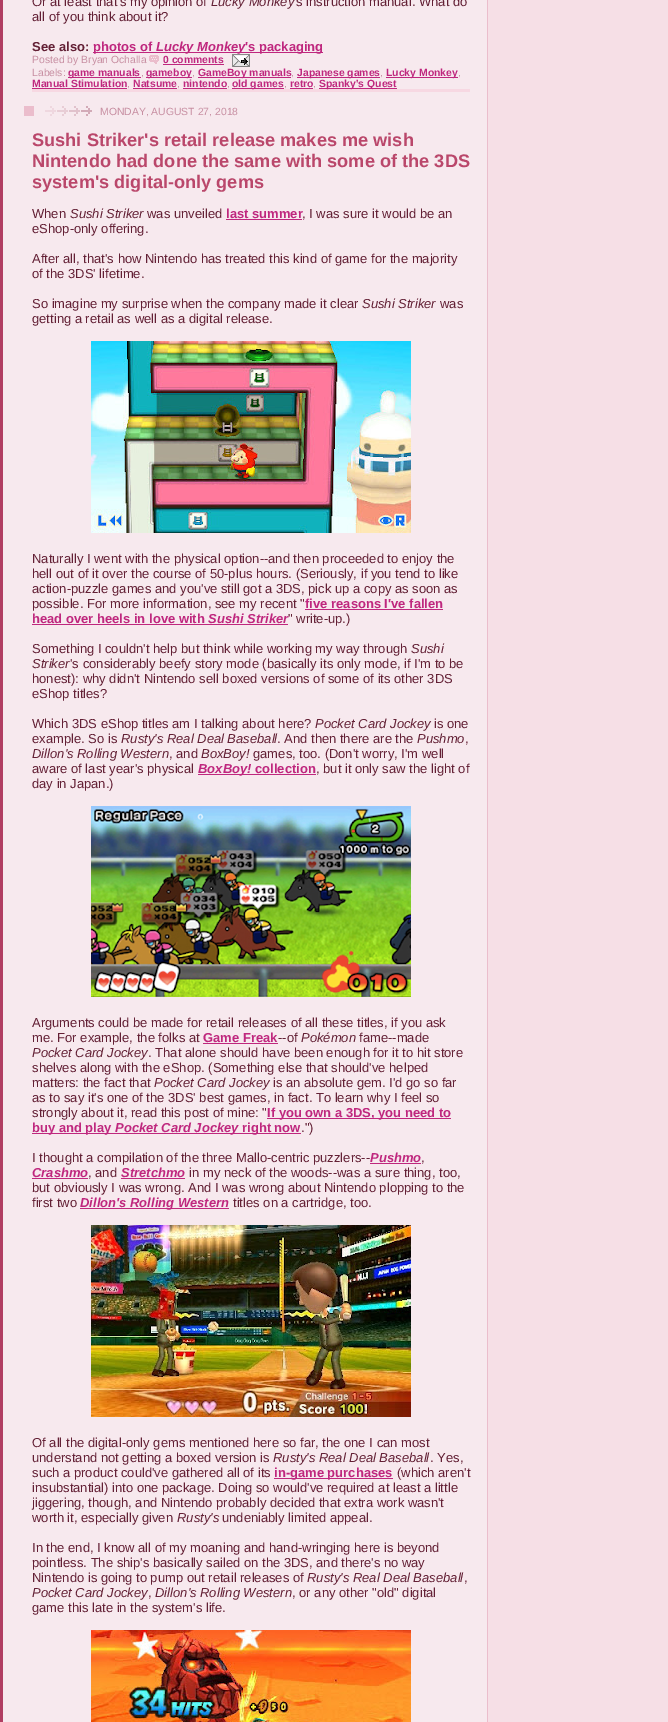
%!PS-Adobe-3.0
%%BoundingBox: 0 0 668 1722
%%LanguageLevel: 3
%%Pages: 1
%%EndComments
%%BeginProlog
/drawimage { 5 dict begin { /h /w /y /x /name } { exch def } forall
  gsave x y translate w h scale
  w h 8 [w 0 0 h 0 0] name (r) file false 3 colorimage grestore end } def
%%EndProlog
%%BeginSetup
<< /PageSize [668 1722] >> setpagedevice
%%EndSetup
%%Page: 1 1
0 1722 translate 1 -1 scale
4 setmiterlimit
1 setgray
0 0 668 1722 rectfill
(images/1.raw) 0 0 668 1722 drawimage
0.969 0.847 0.886 setrgbcolor
32 89 438 3 rectfill
0.749 0.153 0.494 setrgbcolor
93 52 152 1 rectfill
245 52 78 1 rectfill
(images/2.raw) 149 55 10 9 drawimage
163 64 61 1 rectfill
(images/3.raw) 232 54 18 13 drawimage
68 77 73 1 rectfill
146 77 46 1 rectfill
198 77 93 1 rectfill
297 77 83 1 rectfill
386 77 72 1 rectfill
32 88 95 1 rectfill
133 88 44 1 rectfill
183 88 44 1 rectfill
232 88 52 1 rectfill
290 88 23 1 rectfill
319 88 78 1 rectfill
0.922 0.741 0.8 setrgbcolor
24 106 10 10 rectfill
(images/4.raw) 45 106 47 10 drawimage
0.749 0.153 0.494 setrgbcolor
226 219 76 1 rectfill
(images/5.raw) 91 341 320 192 drawimage
305 609 138 1 rectfill
32 624 256 1 rectfill
198 774 118 1 rectfill
(images/6.raw) 91 806 320 191 drawimage
203 1043 75 1 rectfill
267 1118 184 1 rectfill
32 1133 207 1 rectfill
239 1133 62 1 rectfill
370 1163 51 1 rectfill
32 1178 56 1 rectfill
121 1178 64 1 rectfill
80 1208 149 1 rectfill
(images/7.raw) 91 1225 320 192 drawimage
274 1478 119 1 rectfill
(images/8.raw) 91 1630 320 92 drawimage
/LiberationSans-Regular [13 0 0 -13 0 0] selectfont
0.388 0.125 0.208 setrgbcolor
32 6 moveto (Or at least that's my opinion of) show
/LiberationSans-Italic [13 0 0 -13 0 0] selectfont
211 6 moveto (Lucky Monkey) show
/LiberationSans-Regular [13 0 0 -13 0 0] selectfont
296 6 moveto (s instruction manual. What do) show
32 21 moveto (all of you think about it?) show
/LiberationSans-Bold [13 0 0 -13 0 0] selectfont
32 51 moveto (See also:) show
0.749 0.153 0.494 setrgbcolor
93 51 moveto (photos of) show
/LiberationSans-BoldItalic [13 0 0 -13 0 0] selectfont
156 51 moveto (Lucky Monkey) show
/LiberationSans-Bold [13 0 0 -13 0 0] selectfont
245 51 moveto ('s packaging) show
/LiberationSans-Regular [10.4 0 0 -10.4 0 0] selectfont
0.784 0.561 0.635 setrgbcolor
32 63 moveto (Posted by Bryan Ochalla) show
/LiberationSans-Bold [10.4 0 0 -10.4 0 0] selectfont
0.749 0.153 0.494 setrgbcolor
163 63 moveto (0 comments) show
/LiberationSans-Regular [10.4 0 0 -10.4 0 0] selectfont
0.784 0.561 0.635 setrgbcolor
32 76 moveto (Labels:) show
/LiberationSans-Bold [10.4 0 0 -10.4 0 0] selectfont
0.749 0.153 0.494 setrgbcolor
68 76 moveto (game manuals) show
/LiberationSans-Regular [10.4 0 0 -10.4 0 0] selectfont
0.784 0.561 0.635 setrgbcolor
141 76 moveto (,) show
/LiberationSans-Bold [10.4 0 0 -10.4 0 0] selectfont
0.749 0.153 0.494 setrgbcolor
146 76 moveto (gameboy) show
/LiberationSans-Regular [10.4 0 0 -10.4 0 0] selectfont
0.784 0.561 0.635 setrgbcolor
192 76 moveto (,) show
/LiberationSans-Bold [10.4 0 0 -10.4 0 0] selectfont
0.749 0.153 0.494 setrgbcolor
198 76 moveto (GameBoy manuals) show
/LiberationSans-Regular [10.4 0 0 -10.4 0 0] selectfont
0.784 0.561 0.635 setrgbcolor
291 76 moveto (,) show
/LiberationSans-Bold [10.4 0 0 -10.4 0 0] selectfont
0.749 0.153 0.494 setrgbcolor
297 76 moveto (Japanese games) show
/LiberationSans-Regular [10.4 0 0 -10.4 0 0] selectfont
0.784 0.561 0.635 setrgbcolor
380 76 moveto (,) show
/LiberationSans-Bold [10.4 0 0 -10.4 0 0] selectfont
0.749 0.153 0.494 setrgbcolor
386 76 moveto (Lucky Monkey) show
/LiberationSans-Regular [10.4 0 0 -10.4 0 0] selectfont
0.784 0.561 0.635 setrgbcolor
458 76 moveto (,) show
/LiberationSans-Bold [10.4 0 0 -10.4 0 0] selectfont
0.749 0.153 0.494 setrgbcolor
32 87 moveto (Manual Stimulation) show
/LiberationSans-Regular [10.4 0 0 -10.4 0 0] selectfont
0.784 0.561 0.635 setrgbcolor
127 87 moveto (,) show
/LiberationSans-Bold [10.4 0 0 -10.4 0 0] selectfont
0.749 0.153 0.494 setrgbcolor
133 87 moveto (Natsume) show
/LiberationSans-Regular [10.4 0 0 -10.4 0 0] selectfont
0.784 0.561 0.635 setrgbcolor
177 87 moveto (,) show
/LiberationSans-Bold [10.4 0 0 -10.4 0 0] selectfont
0.749 0.153 0.494 setrgbcolor
183 87 moveto (nintendo) show
/LiberationSans-Regular [10.4 0 0 -10.4 0 0] selectfont
0.784 0.561 0.635 setrgbcolor
227 87 moveto (,) show
/LiberationSans-Bold [10.4 0 0 -10.4 0 0] selectfont
0.749 0.153 0.494 setrgbcolor
232 87 moveto (old games) show
/LiberationSans-Regular [10.4 0 0 -10.4 0 0] selectfont
0.784 0.561 0.635 setrgbcolor
284 87 moveto (,) show
/LiberationSans-Bold [10.4 0 0 -10.4 0 0] selectfont
0.749 0.153 0.494 setrgbcolor
290 87 moveto (retro) show
/LiberationSans-Regular [10.4 0 0 -10.4 0 0] selectfont
0.784 0.561 0.635 setrgbcolor
313 87 moveto (,) show
/LiberationSans-Bold [10.4 0 0 -10.4 0 0] selectfont
0.749 0.153 0.494 setrgbcolor
319 87 moveto (Spanky's Quest) show
/LiberationSans-Regular [10.4 0 0 -10.4 0 0] selectfont
0.784 0.561 0.635 setrgbcolor
100 115 moveto (MONDAY, AUGUST 27, 2018) show
/LiberationSans-Bold [18.2 0 0 -18.2 0 0] selectfont
0.729 0.278 0.42 setrgbcolor
32 146 moveto (Sushi Striker's retail release makes me wish) show
32 167 moveto (Nintendo had done the same with some of the 3DS) show
32 188 moveto (system's digital-only gems) show
/LiberationSans-Regular [13 0 0 -13 0 0] selectfont
0.388 0.125 0.208 setrgbcolor
32 218 moveto (When) show
/LiberationSans-Italic [13 0 0 -13 0 0] selectfont
70 218 moveto (Sushi Striker) show
/LiberationSans-Regular [13 0 0 -13 0 0] selectfont
147 218 moveto (was unveiled) show
/LiberationSans-Bold [13 0 0 -13 0 0] selectfont
0.749 0.153 0.494 setrgbcolor
226 218 moveto (last summer) show
/LiberationSans-Regular [13 0 0 -13 0 0] selectfont
0.388 0.125 0.208 setrgbcolor
302 218 moveto (, I was sure it would be an) show
32 233 moveto (eShop-only offering.) show
32 263 moveto (After all, that's how Nintendo has treated this kind of game for the majority) show
32 278 moveto (of the 3DS' lifetime.) show
32 308 moveto (So imagine my surprise when the company made it clear) show
/LiberationSans-Italic [13 0 0 -13 0 0] selectfont
362 308 moveto (Sushi Striker) show
/LiberationSans-Regular [13 0 0 -13 0 0] selectfont
440 308 moveto (was) show
32 323 moveto (getting a retail as well as a digital release.) show
32 563 moveto (Naturally I went with the physical option--and then proceeded to enjoy the) show
32 578 moveto (hell out of it over the course of 50-plus hours. \(Seriously, if you tend to like) show
32 593 moveto (action-puzzle games and you've still got a 3DS, pick up a copy as soon as) show
32 608 moveto (possible. For more information, see my recent ") show
/LiberationSans-Bold [13 0 0 -13 0 0] selectfont
0.749 0.153 0.494 setrgbcolor
305 608 moveto (five reasons I've fallen) show
32 623 moveto (head over heels in love with) show
/LiberationSans-BoldItalic [13 0 0 -13 0 0] selectfont
208 623 moveto (Sushi Striker) show
/LiberationSans-Regular [13 0 0 -13 0 0] selectfont
0.388 0.125 0.208 setrgbcolor
288 623 moveto (" write-up.\)) show
32 653 moveto (Something I couldn't help but think while working my way through) show
/LiberationSans-Italic [13 0 0 -13 0 0] selectfont
411 653 moveto (Sushi) show
32 668 moveto (Striker) show
/LiberationSans-Regular [13 0 0 -13 0 0] selectfont
70 668 moveto ('s considerably beefy story mode \(basically its only mode, if I'm to be) show
32 683 moveto (honest\): why didn't Nintendo sell boxed versions of some of its other 3DS) show
32 698 moveto (eShop titles?) show
32 728 moveto (Which 3DS eShop titles am I talking about here?) show
/LiberationSans-Italic [13 0 0 -13 0 0] selectfont
315 728 moveto (Pocket Card Jockey) show
/LiberationSans-Regular [13 0 0 -13 0 0] selectfont
434 728 moveto (is one) show
32 743 moveto (example. So is) show
/LiberationSans-Italic [13 0 0 -13 0 0] selectfont
121 743 moveto (Rusty's Real Deal Baseball) show
/LiberationSans-Regular [13 0 0 -13 0 0] selectfont
277 743 moveto (. And then there are the) show
/LiberationSans-Italic [13 0 0 -13 0 0] selectfont
417 743 moveto (Pushmo) show
/LiberationSans-Regular [13 0 0 -13 0 0] selectfont
465 743 moveto (,) show
/LiberationSans-Italic [13 0 0 -13 0 0] selectfont
32 758 moveto (Dillon's Rolling Western) show
/LiberationSans-Regular [13 0 0 -13 0 0] selectfont
169 758 moveto (, and) show
/LiberationSans-Italic [13 0 0 -13 0 0] selectfont
201 758 moveto (BoxBoy!) show
/LiberationSans-Regular [13 0 0 -13 0 0] selectfont
253 758 moveto (games, too. \(Don't worry, I'm well) show
32 773 moveto (aware of last year's physical) show
/LiberationSans-BoldItalic [13 0 0 -13 0 0] selectfont
0.749 0.153 0.494 setrgbcolor
198 773 moveto (BoxBoy!) show
/LiberationSans-Bold [13 0 0 -13 0 0] selectfont
255 773 moveto (collection) show
/LiberationSans-Regular [13 0 0 -13 0 0] selectfont
0.388 0.125 0.208 setrgbcolor
316 773 moveto (, but it only saw the light of) show
32 788 moveto (day in Japan.\)) show
32 1027 moveto (Arguments could be made for retail releases of all these titles, if you ask) show
32 1042 moveto (me. For example, the folks at) show
/LiberationSans-Bold [13 0 0 -13 0 0] selectfont
0.749 0.153 0.494 setrgbcolor
203 1042 moveto (Game Freak) show
/LiberationSans-Regular [13 0 0 -13 0 0] selectfont
0.388 0.125 0.208 setrgbcolor
278 1042 moveto (--of) show
/LiberationSans-Italic [13 0 0 -13 0 0] selectfont
301 1042 moveto (Pokémon) show
/LiberationSans-Regular [13 0 0 -13 0 0] selectfont
359 1042 moveto (fame--made) show
/LiberationSans-Italic [13 0 0 -13 0 0] selectfont
32 1057 moveto (Pocket Card Jockey) show
/LiberationSans-Regular [13 0 0 -13 0 0] selectfont
148 1057 moveto (. That alone should have been enough for it to hit store) show
32 1072 moveto (shelves along with the eShop. \(Something else that should've helped) show
32 1087 moveto (matters: the fact that) show
/LiberationSans-Italic [13 0 0 -13 0 0] selectfont
154 1087 moveto (Pocket Card Jockey) show
/LiberationSans-Regular [13 0 0 -13 0 0] selectfont
273 1087 moveto (is an absolute gem. I'd go so far) show
32 1102 moveto (as to say it's one of the 3DS' best games, in fact. To learn why I feel so) show
32 1117 moveto (strongly about it, read this post of mine: ") show
/LiberationSans-Bold [13 0 0 -13 0 0] selectfont
0.749 0.153 0.494 setrgbcolor
267 1117 moveto (If you own a 3DS, you need to) show
32 1132 moveto (buy and play) show
/LiberationSans-BoldItalic [13 0 0 -13 0 0] selectfont
115 1132 moveto (Pocket Card Jockey) show
/LiberationSans-Bold [13 0 0 -13 0 0] selectfont
242 1132 moveto (right now) show
/LiberationSans-Regular [13 0 0 -13 0 0] selectfont
0.388 0.125 0.208 setrgbcolor
301 1132 moveto (."\)) show
32 1162 moveto (I thought a compilation of the three Mallo-centric puzzlers--) show
/LiberationSans-BoldItalic [13 0 0 -13 0 0] selectfont
0.749 0.153 0.494 setrgbcolor
370 1162 moveto (Pushmo) show
/LiberationSans-Regular [13 0 0 -13 0 0] selectfont
0.388 0.125 0.208 setrgbcolor
421 1162 moveto (,) show
/LiberationSans-BoldItalic [13 0 0 -13 0 0] selectfont
0.749 0.153 0.494 setrgbcolor
32 1177 moveto (Crashmo) show
/LiberationSans-Regular [13 0 0 -13 0 0] selectfont
0.388 0.125 0.208 setrgbcolor
88 1177 moveto (, and) show
/LiberationSans-BoldItalic [13 0 0 -13 0 0] selectfont
0.749 0.153 0.494 setrgbcolor
121 1177 moveto (Stretchmo) show
/LiberationSans-Regular [13 0 0 -13 0 0] selectfont
0.388 0.125 0.208 setrgbcolor
189 1177 moveto (in my neck of the woods--was a sure thing, too,) show
32 1192 moveto (but obviously I was wrong. And I was wrong about Nintendo plopping to the) show
32 1207 moveto (first two) show
/LiberationSans-BoldItalic [13 0 0 -13 0 0] selectfont
0.749 0.153 0.494 setrgbcolor
80 1207 moveto (Dillon's Rolling Western) show
/LiberationSans-Regular [13 0 0 -13 0 0] selectfont
0.388 0.125 0.208 setrgbcolor
233 1207 moveto (titles on a cartridge, too.) show
32 1447 moveto (Of all the digital-only gems mentioned here so far, the one I can most) show
32 1462 moveto (understand not getting a boxed version is) show
/LiberationSans-Italic [13 0 0 -13 0 0] selectfont
273 1462 moveto (Rusty's Real Deal Baseball) show
/LiberationSans-Regular [13 0 0 -13 0 0] selectfont
430 1462 moveto (. Yes,) show
32 1477 moveto (such a product could've gathered all of its) show
/LiberationSans-Bold [13 0 0 -13 0 0] selectfont
0.749 0.153 0.494 setrgbcolor
274 1477 moveto (in-game purchases) show
/LiberationSans-Regular [13 0 0 -13 0 0] selectfont
0.388 0.125 0.208 setrgbcolor
397 1477 moveto (\(which aren't) show
32 1492 moveto (insubstantial\) into one package. Doing so would've required at least a little) show
32 1507 moveto (jiggering, though, and Nintendo probably decided that extra work wasn't) show
32 1522 moveto (worth it, especially given) show
/LiberationSans-Italic [13 0 0 -13 0 0] selectfont
177 1522 moveto (Rusty's) show
/LiberationSans-Regular [13 0 0 -13 0 0] selectfont
222 1522 moveto (undeniably limited appeal.) show
32 1552 moveto (In the end, I know all of my moaning and hand-wringing here is beyond) show
32 1567 moveto (pointless. The ship's basically sailed on the 3DS, and there's no way) show
32 1582 moveto (Nintendo is going to pump out retail releases of) show
/LiberationSans-Italic [13 0 0 -13 0 0] selectfont
307 1582 moveto (Rusty's Real Deal Baseball) show
/LiberationSans-Regular [13 0 0 -13 0 0] selectfont
464 1582 moveto (,) show
/LiberationSans-Italic [13 0 0 -13 0 0] selectfont
32 1597 moveto (Pocket Card Jockey) show
/LiberationSans-Regular [13 0 0 -13 0 0] selectfont
148 1597 moveto (,) show
/LiberationSans-Italic [13 0 0 -13 0 0] selectfont
155 1597 moveto (Dillon's Rolling Western) show
/LiberationSans-Regular [13 0 0 -13 0 0] selectfont
292 1597 moveto (, or any other "old" digital) show
32 1612 moveto (game this late in the system's life.) show
showpage
%%EOF
